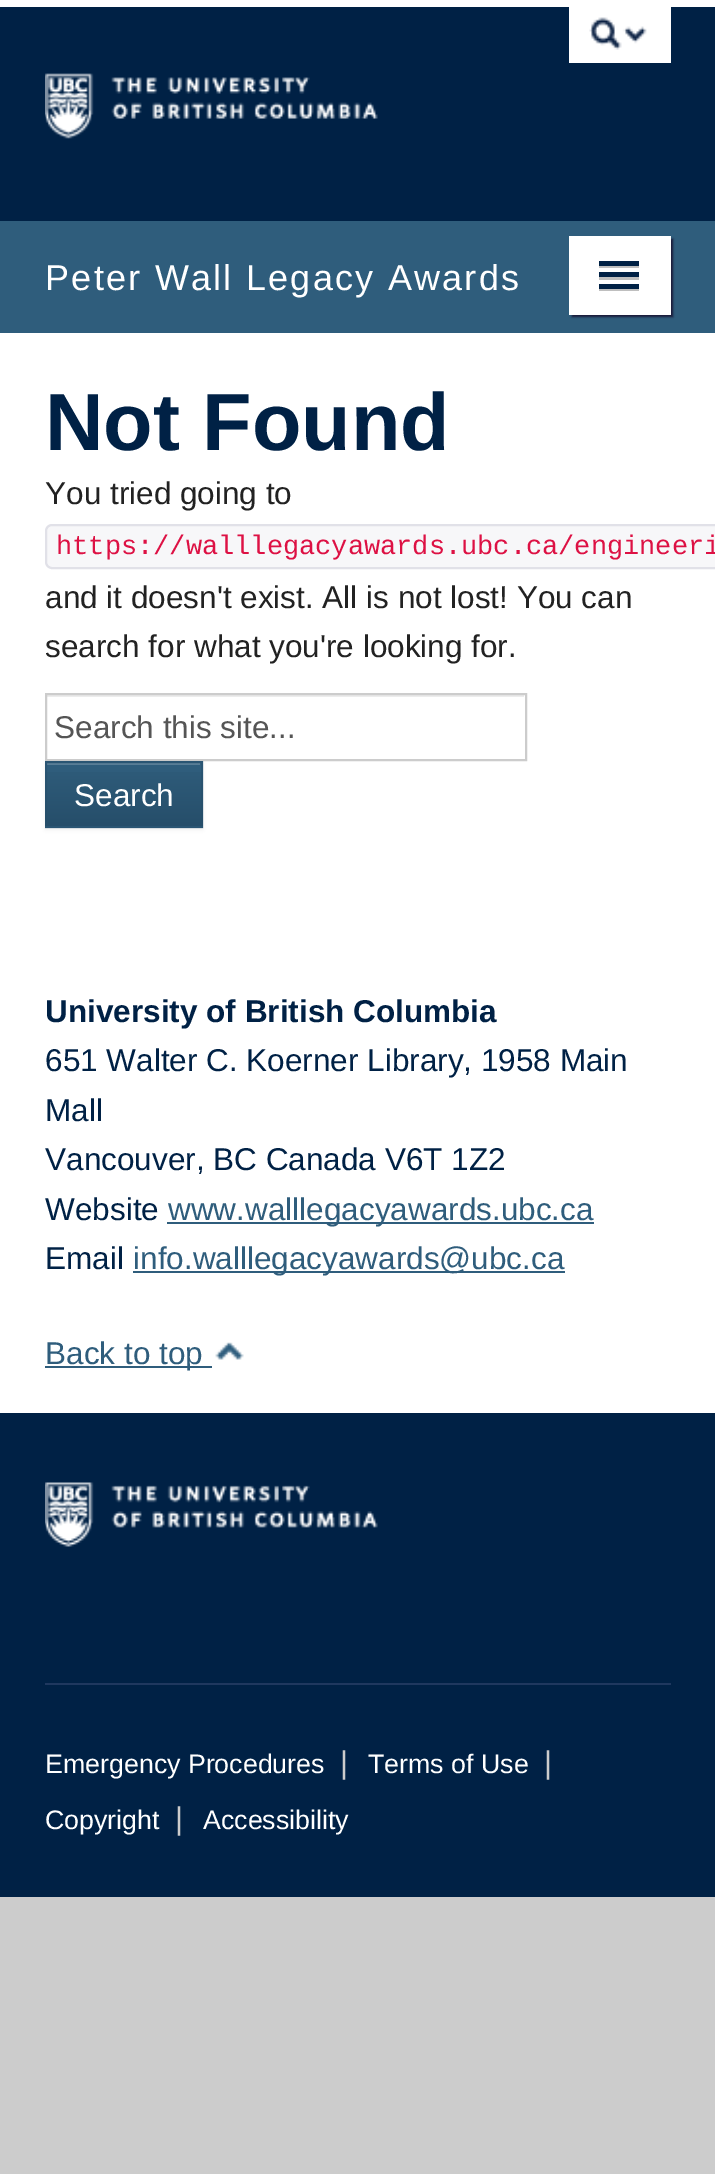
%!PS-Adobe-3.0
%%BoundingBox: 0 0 715 2174
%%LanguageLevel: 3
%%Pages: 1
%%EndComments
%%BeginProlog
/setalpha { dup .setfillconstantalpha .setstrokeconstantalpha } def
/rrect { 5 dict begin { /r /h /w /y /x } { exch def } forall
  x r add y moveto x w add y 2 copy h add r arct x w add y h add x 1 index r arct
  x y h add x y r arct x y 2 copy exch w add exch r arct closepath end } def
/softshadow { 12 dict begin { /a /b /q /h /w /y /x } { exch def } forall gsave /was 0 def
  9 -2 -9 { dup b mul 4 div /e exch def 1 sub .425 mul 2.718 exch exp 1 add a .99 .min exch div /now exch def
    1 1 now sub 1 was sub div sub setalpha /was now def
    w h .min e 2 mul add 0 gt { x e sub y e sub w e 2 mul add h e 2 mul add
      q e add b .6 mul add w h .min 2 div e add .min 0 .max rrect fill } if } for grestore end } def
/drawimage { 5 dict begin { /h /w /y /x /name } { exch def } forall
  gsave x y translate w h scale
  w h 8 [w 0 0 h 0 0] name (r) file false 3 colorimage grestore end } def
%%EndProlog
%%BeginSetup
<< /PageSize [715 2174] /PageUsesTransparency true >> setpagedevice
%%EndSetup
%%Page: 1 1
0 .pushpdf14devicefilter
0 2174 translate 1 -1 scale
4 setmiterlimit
0.8 setgray
0 0 715 2174 rectfill
0 0.129 0.271 setrgbcolor
0 7 715 214 rectfill
1 setgray
0 0 715 7 rectfill
(images/1.raw) 45 73 333 66 drawimage
569 7 102 56 rectfill
(images/2.raw) 589 17 58 33 drawimage
0.184 0.365 0.486 setrgbcolor
0 221 715 112 rectfill
0.098 0.098 0.22 setrgbcolor
572 239 101 78 0 1 1 softshadow
1 setgray
569 236 102 79 rectfill
0.749 setgray
599 266 40 2 rectfill
0 0.129 0.271 setrgbcolor
599 261 40 5 rectfill
0.749 setgray
599 277 40 3 rectfill
0 0.129 0.271 setrgbcolor
599 272 40 5 rectfill
0.749 setgray
599 289 40 2 rectfill
0 0.129 0.271 setrgbcolor
599 284 40 5 rectfill
1 setgray
0 333 715 1080 rectfill
0.969 0.969 0.976 setrgbcolor
46 525 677 43 6 rrect gsave fill grestore
0.882 0.882 0.91 setrgbcolor
2 setlinewidth
stroke
0.925 setgray
47 695 477 2 rectfill
0.8 setgray
46 694 480 66 rectstroke
0 setgray
45 763 158 67 0 2 0.05 softshadow
0.184 0.365 0.486 setrgbcolor
45 761 158 67 rectfill
gsave newpath 45 772 moveto 203 772 lineto 203 826 lineto 45 826 lineto closepath clip newpath
<< /ShadingType 2 /ColorSpace /DeviceRGB /Coords [124 763 124 826] /Extend [true true] /Function << /FunctionType 2 /Domain [0 1] /C0 [0.184 0.365 0.486] /C1 [0.149 0.306 0.416] /N 1 >> >> shfill grestore
0.349 0.49 0.588 setrgbcolor
47 763 153 2 rectfill
0.5 setalpha
0.149 0.306 0.416 setrgbcolor
46 762 156 65 rectstroke
1 setalpha
0 0.129 0.271 setrgbcolor
0 1413 715 484 rectfill
0.184 0.365 0.486 setrgbcolor
167 1222 427 2 rectfill
133 1271 432 2 rectfill
45 1366 167 2 rectfill
(images/3.raw) 215 1342 29 18 drawimage
(images/4.raw) 45 1482 333 65 drawimage
0.122 0.22 0.373 setrgbcolor
45 1683 626 2 rectfill
/LiberationSans-Regular [36 0 0 -36 0 0] selectfont
1 setgray
45 290 moveto 2.25 0 (Peter Wall Legacy Awards) ashow
/LiberationSans-Bold [81 0 0 -81 0 0] selectfont
0 0.129 0.271 setrgbcolor
45 450 moveto (Not Found) show
/LiberationSans-Regular [31.5 0 0 -31.5 0 0] selectfont
0.133 setgray
45 504 moveto (You tried going to) show
/LiberationMono-Regular [27 0 0 -27 0 0] selectfont
0.867 0.067 0.267 setrgbcolor
56 554 moveto (https://walllegacyawards.ubc.ca/engineeri) show
/LiberationSans-Regular [31.5 0 0 -31.5 0 0] selectfont
0.133 setgray
45 608 moveto (and it doesn't exist. All is not lost! You can) show
45 657 moveto (search for what you're looking for.) show
0.333 setgray
54 738 moveto (Search this site...) show
1 setgray
74 806 moveto (Search) show
/LiberationSans-Bold [31.5 0 0 -31.5 0 0] selectfont
0 0.129 0.271 setrgbcolor
45 1022 moveto (University of British Columbia) show
/LiberationSans-Regular [31.5 0 0 -31.5 0 0] selectfont
45 1071 moveto (651 Walter C. Koerner Library, 1958 Main) show
45 1121 moveto (Mall) show
45 1170 moveto (Vancouver, BC Canada V6T 1Z2) show
45 1220 moveto (Website) show
0.184 0.365 0.486 setrgbcolor
168 1220 moveto (www.walllegacyawards.ubc.ca) show
0 0.129 0.271 setrgbcolor
45 1269 moveto (Email) show
0.184 0.365 0.486 setrgbcolor
133 1269 moveto (info.walllegacyawards@ubc.ca) show
45 1364 moveto (Back to top) show
/LiberationSans-Regular [26.75 0 0 -26.75 0 0] selectfont
1 setgray
45 1773 moveto (Emergency Procedures) show
/LiberationSans-Regular [31.5 0 0 -31.5 0 0] selectfont
0.8 setgray
340 1773 moveto (|) show
/LiberationSans-Regular [26.75 0 0 -26.75 0 0] selectfont
1 setgray
368 1773 moveto (Terms of Use) show
/LiberationSans-Regular [31.5 0 0 -31.5 0 0] selectfont
0.8 setgray
544 1773 moveto (|) show
/LiberationSans-Regular [26.75 0 0 -26.75 0 0] selectfont
1 setgray
45 1829 moveto (Copyright) show
/LiberationSans-Regular [31.5 0 0 -31.5 0 0] selectfont
0.8 setgray
175 1829 moveto (|) show
/LiberationSans-Regular [26.75 0 0 -26.75 0 0] selectfont
1 setgray
203 1829 moveto (Accessibility) show
.poppdf14devicefilter showpage
%%EOF
